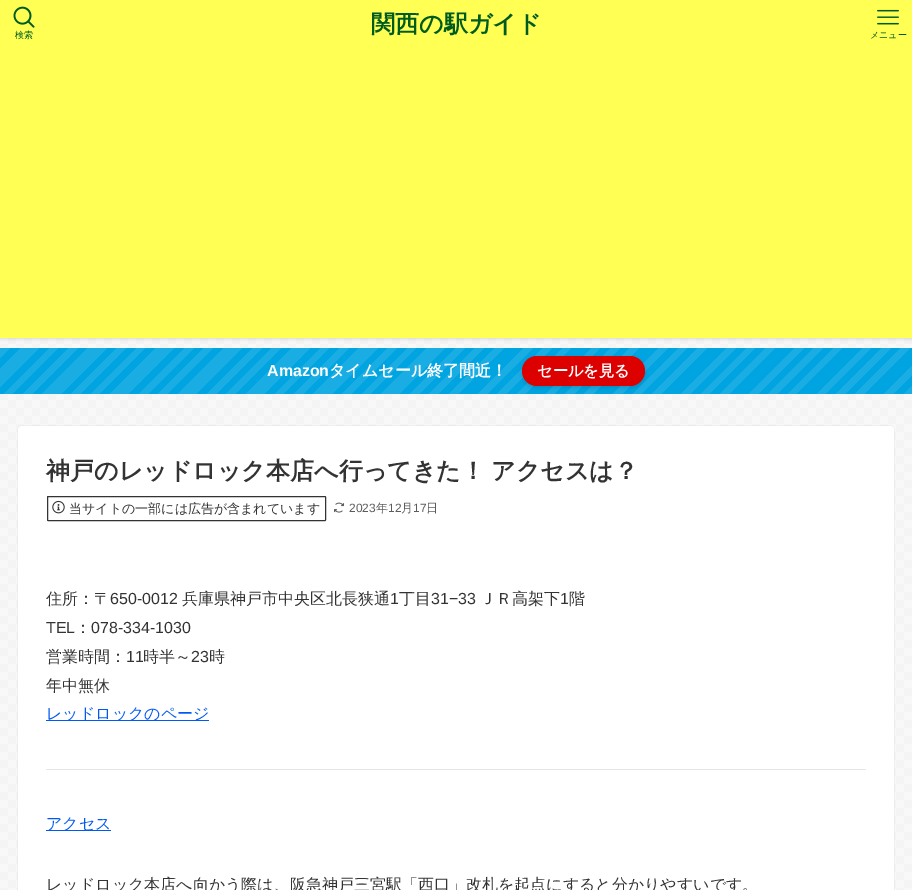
%!PS-Adobe-3.0
%%BoundingBox: 0 0 912 890
%%LanguageLevel: 3
%%Pages: 1
%%EndComments
%%BeginProlog
/setalpha { dup .setfillconstantalpha .setstrokeconstantalpha } def
/rrect { 5 dict begin { /r /h /w /y /x } { exch def } forall
  x r add y moveto x w add y 2 copy h add r arct x w add y h add x 1 index r arct
  x y h add x y r arct x y 2 copy exch w add exch r arct closepath end } def
/softshadow { 12 dict begin { /a /b /q /h /w /y /x } { exch def } forall gsave /was 0 def
  9 -2 -9 { dup b mul 4 div /e exch def 1 sub .425 mul 2.718 exch exp 1 add a .99 .min exch div /now exch def
    1 1 now sub 1 was sub div sub setalpha /was now def
    w h .min e 2 mul add 0 gt { x e sub y e sub w e 2 mul add h e 2 mul add
      q e add b .6 mul add w h .min 2 div e add .min 0 .max rrect fill } if } for grestore end } def
/drawimage { 5 dict begin { /h /w /y /x /name } { exch def } forall
  gsave x y translate w h scale
  w h 8 [w 0 0 h 0 0] name (r) file false 3 colorimage grestore end } def
%%EndProlog
%%BeginSetup
<< /PageSize [912 890] /PageUsesTransparency true >> setpagedevice
%%EndSetup
%%Page: 1 1
0 .pushpdf14devicefilter
0 890 translate 1 -1 scale
4 setmiterlimit
1 setgray
0 0 912 890 rectfill
(images/1.raw) 0 338 912 552 drawimage
0 setgray
0 1 912 338 0 2 0.12 softshadow
1 1 0.329 setrgbcolor
0 0 912 338 rectfill
(images/2.raw) 13 6 22 22 drawimage
(images/3.raw) 877 9 22 16 drawimage
gsave newpath 0 348 moveto 912 348 lineto 912 394 lineto 0 394 lineto closepath clip newpath
<< /ShadingType 2 /ColorSpace /DeviceRGB /Coords [696 611 212 127] /Extend [true true] /Function << /FunctionType 3 /Domain [0 1] /Functions [<< /FunctionType 2 /Domain [0 1] /C0 [0.102 0.678 0.89] /C1 [0.102 0.678 0.89] /N 1 >> << /FunctionType 2 /Domain [0 1] /C0 [0 0.643 0.878] /C1 [0 0.643 0.878] /N 1 >> << /FunctionType 2 /Domain [0 1] /C0 [0.102 0.678 0.89] /C1 [0.102 0.678 0.89] /N 1 >> << /FunctionType 2 /Domain [0 1] /C0 [0 0.643 0.878] /C1 [0 0.643 0.878] /N 1 >> << /FunctionType 2 /Domain [0 1] /C0 [0 0.643 0.878] /C1 [0 0.643 0.878] /N 1 >> << /FunctionType 2 /Domain [0 1] /C0 [0.102 0.678 0.89] /C1 [0.102 0.678 0.89] /N 1 >> << /FunctionType 2 /Domain [0 1] /C0 [0 0.643 0.878] /C1 [0 0.643 0.878] /N 1 >> << /FunctionType 2 /Domain [0 1] /C0 [0.102 0.678 0.89] /C1 [0.102 0.678 0.89] /N 1 >> << /FunctionType 2 /Domain [0 1] /C0 [0 0.643 0.878] /C1 [0 0.643 0.878] /N 1 >> << /FunctionType 2 /Domain [0 1] /C0 [0.102 0.678 0.89] /C1 [0.102 0.678 0.89] /N 1 >> << /FunctionType 2 /Domain [0 1] /C0 [0 0.643 0.878] /C1 [0 0.643 0.878] /N 1 >> << /FunctionType 2 /Domain [0 1] /C0 [0 0.643 0.878] /C1 [0 0.643 0.878] /N 1 >> << /FunctionType 2 /Domain [0 1] /C0 [0.102 0.678 0.89] /C1 [0.102 0.678 0.89] /N 1 >> << /FunctionType 2 /Domain [0 1] /C0 [0 0.643 0.878] /C1 [0 0.643 0.878] /N 1 >> << /FunctionType 2 /Domain [0 1] /C0 [0.102 0.678 0.89] /C1 [0.102 0.678 0.89] /N 1 >> << /FunctionType 2 /Domain [0 1] /C0 [0 0.643 0.878] /C1 [0 0.643 0.878] /N 1 >> << /FunctionType 2 /Domain [0 1] /C0 [0.102 0.678 0.89] /C1 [0.102 0.678 0.89] /N 1 >> << /FunctionType 2 /Domain [0 1] /C0 [0 0.643 0.878] /C1 [0 0.643 0.878] /N 1 >> << /FunctionType 2 /Domain [0 1] /C0 [0 0.643 0.878] /C1 [0 0.643 0.878] /N 1 >> << /FunctionType 2 /Domain [0 1] /C0 [0.102 0.678 0.89] /C1 [0.102 0.678 0.89] /N 1 >> << /FunctionType 2 /Domain [0 1] /C0 [0 0.643 0.878] /C1 [0 0.643 0.878] /N 1 >> << /FunctionType 2 /Domain [0 1] /C0 [0.102 0.678 0.89] /C1 [0.102 0.678 0.89] /N 1 >> << /FunctionType 2 /Domain [0 1] /C0 [0 0.643 0.878] /C1 [0 0.643 0.878] /N 1 >> << /FunctionType 2 /Domain [0 1] /C0 [0.102 0.678 0.89] /C1 [0.102 0.678 0.89] /N 1 >> << /FunctionType 2 /Domain [0 1] /C0 [0 0.643 0.878] /C1 [0 0.643 0.878] /N 1 >> << /FunctionType 2 /Domain [0 1] /C0 [0 0.643 0.878] /C1 [0 0.643 0.878] /N 1 >> << /FunctionType 2 /Domain [0 1] /C0 [0.102 0.678 0.89] /C1 [0.102 0.678 0.89] /N 1 >> << /FunctionType 2 /Domain [0 1] /C0 [0 0.643 0.878] /C1 [0 0.643 0.878] /N 1 >> << /FunctionType 2 /Domain [0 1] /C0 [0.102 0.678 0.89] /C1 [0.102 0.678 0.89] /N 1 >> << /FunctionType 2 /Domain [0 1] /C0 [0 0.643 0.878] /C1 [0 0.643 0.878] /N 1 >> << /FunctionType 2 /Domain [0 1] /C0 [0.102 0.678 0.89] /C1 [0.102 0.678 0.89] /N 1 >> << /FunctionType 2 /Domain [0 1] /C0 [0 0.643 0.878] /C1 [0 0.643 0.878] /N 1 >> << /FunctionType 2 /Domain [0 1] /C0 [0 0.643 0.878] /C1 [0 0.643 0.878] /N 1 >> << /FunctionType 2 /Domain [0 1] /C0 [0.102 0.678 0.89] /C1 [0.102 0.678 0.89] /N 1 >> << /FunctionType 2 /Domain [0 1] /C0 [0 0.643 0.878] /C1 [0 0.643 0.878] /N 1 >> << /FunctionType 2 /Domain [0 1] /C0 [0.102 0.678 0.89] /C1 [0.102 0.678 0.89] /N 1 >> << /FunctionType 2 /Domain [0 1] /C0 [0 0.643 0.878] /C1 [0 0.643 0.878] /N 1 >> << /FunctionType 2 /Domain [0 1] /C0 [0.102 0.678 0.89] /C1 [0.102 0.678 0.89] /N 1 >> << /FunctionType 2 /Domain [0 1] /C0 [0 0.643 0.878] /C1 [0 0.643 0.878] /N 1 >> << /FunctionType 2 /Domain [0 1] /C0 [0 0.643 0.878] /C1 [0 0.643 0.878] /N 1 >> << /FunctionType 2 /Domain [0 1] /C0 [0.102 0.678 0.89] /C1 [0.102 0.678 0.89] /N 1 >> << /FunctionType 2 /Domain [0 1] /C0 [0 0.643 0.878] /C1 [0 0.643 0.878] /N 1 >> << /FunctionType 2 /Domain [0 1] /C0 [0.102 0.678 0.89] /C1 [0.102 0.678 0.89] /N 1 >> << /FunctionType 2 /Domain [0 1] /C0 [0 0.643 0.878] /C1 [0 0.643 0.878] /N 1 >> << /FunctionType 2 /Domain [0 1] /C0 [0.102 0.678 0.89] /C1 [0.102 0.678 0.89] /N 1 >> << /FunctionType 2 /Domain [0 1] /C0 [0 0.643 0.878] /C1 [0 0.643 0.878] /N 1 >> << /FunctionType 2 /Domain [0 1] /C0 [0 0.643 0.878] /C1 [0 0.643 0.878] /N 1 >> << /FunctionType 2 /Domain [0 1] /C0 [0.102 0.678 0.89] /C1 [0.102 0.678 0.89] /N 1 >> << /FunctionType 2 /Domain [0 1] /C0 [0 0.643 0.878] /C1 [0 0.643 0.878] /N 1 >> << /FunctionType 2 /Domain [0 1] /C0 [0.102 0.678 0.89] /C1 [0.102 0.678 0.89] /N 1 >> << /FunctionType 2 /Domain [0 1] /C0 [0 0.643 0.878] /C1 [0 0.643 0.878] /N 1 >> << /FunctionType 2 /Domain [0 1] /C0 [0.102 0.678 0.89] /C1 [0.102 0.678 0.89] /N 1 >> << /FunctionType 2 /Domain [0 1] /C0 [0 0.643 0.878] /C1 [0 0.643 0.878] /N 1 >> << /FunctionType 2 /Domain [0 1] /C0 [0.102 0.678 0.89] /C1 [0.102 0.678 0.89] /N 1 >> << /FunctionType 2 /Domain [0 1] /C0 [0.102 0.678 0.89] /C1 [0.102 0.678 0.89] /N 1 >> << /FunctionType 2 /Domain [0 1] /C0 [0 0.643 0.878] /C1 [0 0.643 0.878] /N 1 >> << /FunctionType 2 /Domain [0 1] /C0 [0.102 0.678 0.89] /C1 [0.102 0.678 0.89] /N 1 >> << /FunctionType 2 /Domain [0 1] /C0 [0 0.643 0.878] /C1 [0 0.643 0.878] /N 1 >> << /FunctionType 2 /Domain [0 1] /C0 [0.102 0.678 0.89] /C1 [0.102 0.678 0.89] /N 1 >> << /FunctionType 2 /Domain [0 1] /C0 [0 0.643 0.878] /C1 [0 0.643 0.878] /N 1 >> << /FunctionType 2 /Domain [0 1] /C0 [0.102 0.678 0.89] /C1 [0.102 0.678 0.89] /N 1 >> << /FunctionType 2 /Domain [0 1] /C0 [0.102 0.678 0.89] /C1 [0.102 0.678 0.89] /N 1 >> << /FunctionType 2 /Domain [0 1] /C0 [0 0.643 0.878] /C1 [0 0.643 0.878] /N 1 >> << /FunctionType 2 /Domain [0 1] /C0 [0.102 0.678 0.89] /C1 [0.102 0.678 0.89] /N 1 >> << /FunctionType 2 /Domain [0 1] /C0 [0 0.643 0.878] /C1 [0 0.643 0.878] /N 1 >> << /FunctionType 2 /Domain [0 1] /C0 [0.102 0.678 0.89] /C1 [0.102 0.678 0.89] /N 1 >> << /FunctionType 2 /Domain [0 1] /C0 [0 0.643 0.878] /C1 [0 0.643 0.878] /N 1 >> << /FunctionType 2 /Domain [0 1] /C0 [0.102 0.678 0.89] /C1 [0.102 0.678 0.89] /N 1 >> << /FunctionType 2 /Domain [0 1] /C0 [0.102 0.678 0.89] /C1 [0.102 0.678 0.89] /N 1 >> << /FunctionType 2 /Domain [0 1] /C0 [0 0.643 0.878] /C1 [0 0.643 0.878] /N 1 >> << /FunctionType 2 /Domain [0 1] /C0 [0.102 0.678 0.89] /C1 [0.102 0.678 0.89] /N 1 >> << /FunctionType 2 /Domain [0 1] /C0 [0 0.643 0.878] /C1 [0 0.643 0.878] /N 1 >> << /FunctionType 2 /Domain [0 1] /C0 [0.102 0.678 0.89] /C1 [0.102 0.678 0.89] /N 1 >> << /FunctionType 2 /Domain [0 1] /C0 [0 0.643 0.878] /C1 [0 0.643 0.878] /N 1 >> << /FunctionType 2 /Domain [0 1] /C0 [0.102 0.678 0.89] /C1 [0.102 0.678 0.89] /N 1 >> << /FunctionType 2 /Domain [0 1] /C0 [0.102 0.678 0.89] /C1 [0.102 0.678 0.89] /N 1 >> << /FunctionType 2 /Domain [0 1] /C0 [0 0.643 0.878] /C1 [0 0.643 0.878] /N 1 >> << /FunctionType 2 /Domain [0 1] /C0 [0.102 0.678 0.89] /C1 [0.102 0.678 0.89] /N 1 >> << /FunctionType 2 /Domain [0 1] /C0 [0 0.643 0.878] /C1 [0 0.643 0.878] /N 1 >> << /FunctionType 2 /Domain [0 1] /C0 [0.102 0.678 0.89] /C1 [0.102 0.678 0.89] /N 1 >> << /FunctionType 2 /Domain [0 1] /C0 [0 0.643 0.878] /C1 [0 0.643 0.878] /N 1 >> << /FunctionType 2 /Domain [0 1] /C0 [0.102 0.678 0.89] /C1 [0.102 0.678 0.89] /N 1 >> << /FunctionType 2 /Domain [0 1] /C0 [0.102 0.678 0.89] /C1 [0.102 0.678 0.89] /N 1 >> << /FunctionType 2 /Domain [0 1] /C0 [0 0.643 0.878] /C1 [0 0.643 0.878] /N 1 >> << /FunctionType 2 /Domain [0 1] /C0 [0.102 0.678 0.89] /C1 [0.102 0.678 0.89] /N 1 >> << /FunctionType 2 /Domain [0 1] /C0 [0 0.643 0.878] /C1 [0 0.643 0.878] /N 1 >> << /FunctionType 2 /Domain [0 1] /C0 [0.102 0.678 0.89] /C1 [0.102 0.678 0.89] /N 1 >> << /FunctionType 2 /Domain [0 1] /C0 [0 0.643 0.878] /C1 [0 0.643 0.878] /N 1 >> << /FunctionType 2 /Domain [0 1] /C0 [0.102 0.678 0.89] /C1 [0.102 0.678 0.89] /N 1 >> << /FunctionType 2 /Domain [0 1] /C0 [0.102 0.678 0.89] /C1 [0.102 0.678 0.89] /N 1 >> << /FunctionType 2 /Domain [0 1] /C0 [0 0.643 0.878] /C1 [0 0.643 0.878] /N 1 >> << /FunctionType 2 /Domain [0 1] /C0 [0.102 0.678 0.89] /C1 [0.102 0.678 0.89] /N 1 >> << /FunctionType 2 /Domain [0 1] /C0 [0 0.643 0.878] /C1 [0 0.643 0.878] /N 1 >> << /FunctionType 2 /Domain [0 1] /C0 [0.102 0.678 0.89] /C1 [0.102 0.678 0.89] /N 1 >> << /FunctionType 2 /Domain [0 1] /C0 [0 0.643 0.878] /C1 [0 0.643 0.878] /N 1 >> << /FunctionType 2 /Domain [0 1] /C0 [0.102 0.678 0.89] /C1 [0.102 0.678 0.89] /N 1 >> << /FunctionType 2 /Domain [0 1] /C0 [0.102 0.678 0.89] /C1 [0.102 0.678 0.89] /N 1 >> << /FunctionType 2 /Domain [0 1] /C0 [0 0.643 0.878] /C1 [0 0.643 0.878] /N 1 >> << /FunctionType 2 /Domain [0 1] /C0 [0.102 0.678 0.89] /C1 [0.102 0.678 0.89] /N 1 >> << /FunctionType 2 /Domain [0 1] /C0 [0 0.643 0.878] /C1 [0 0.643 0.878] /N 1 >>] /Bounds [0.01 0.02 0.03 0.04 0.05 0.06 0.07 0.08 0.09 0.1 0.11 0.12 0.13 0.14 0.15 0.16 0.17 0.18 0.19 0.2 0.21 0.22 0.23 0.24 0.25 0.26 0.27 0.28 0.29 0.3 0.31 0.32 0.33 0.34 0.35 0.36 0.37 0.38 0.39 0.4 0.41 0.42 0.43 0.44 0.45 0.46 0.47 0.48 0.49 0.5 0.51 0.52 0.53 0.54 0.55 0.56 0.57 0.58 0.59 0.6 0.61 0.62 0.63 0.64 0.65 0.66 0.67 0.68 0.69 0.7 0.71 0.72 0.73 0.74 0.75 0.76 0.77 0.78 0.79 0.8 0.81 0.82 0.83 0.84 0.85 0.86 0.87 0.88 0.89 0.9 0.91 0.92 0.93 0.94 0.95 0.96 0.97 0.98 0.99] /Encode [0 1 0 1 0 1 0 1 0 1 0 1 0 1 0 1 0 1 0 1 0 1 0 1 0 1 0 1 0 1 0 1 0 1 0 1 0 1 0 1 0 1 0 1 0 1 0 1 0 1 0 1 0 1 0 1 0 1 0 1 0 1 0 1 0 1 0 1 0 1 0 1 0 1 0 1 0 1 0 1 0 1 0 1 0 1 0 1 0 1 0 1 0 1 0 1 0 1 0 1 0 1 0 1 0 1 0 1 0 1 0 1 0 1 0 1 0 1 0 1 0 1 0 1 0 1 0 1 0 1 0 1 0 1 0 1 0 1 0 1 0 1 0 1 0 1 0 1 0 1 0 1 0 1 0 1 0 1 0 1 0 1 0 1 0 1 0 1 0 1 0 1 0 1 0 1 0 1 0 1 0 1 0 1 0 1 0 1 0 1 0 1 0 1 0 1 0 1 0 1] >> >> shfill grestore
0 setgray
522 358 123 30 15 2 0.12 softshadow
0.867 0 0 setrgbcolor
522 356 123 30 15 rrect fill
0 setgray
18 426 876 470 4 0.5 0.12 softshadow
1 setgray
18 426 876 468 4 rrect fill
0.2 setgray
47.5 496.5 278 24 0.5 rrect stroke
(images/4.raw) 52 500 13 14 drawimage
(images/5.raw) 334 502 10 11 drawimage
0 0.349 0.957 setrgbcolor
46 720 163 1 rectfill
0.902 setgray
46 769 820 1 rectfill
0 0.349 0.957 setrgbcolor
46 830 65 1 rectfill
/WenQuanYiZenHei-Medium [9 0 0 -9 0 0] selectfont
0 0.357 0.118 setrgbcolor
15 38 moveto (検索) show
/WenQuanYiZenHei-Bold [24 0 0 -24 0 0] selectfont
371 32 moveto (関西の駅ガイド) show
/WenQuanYiZenHei-Medium [9 0 0 -9 0 0] selectfont
870 38 moveto (メニュー) show
/LiberationSans-Bold [16 0 0 -16 0 0] selectfont
1 setgray
267 376 moveto (Amazon) show
/WenQuanYiZenHei-Bold [16 0 0 -16 0 0] selectfont
329 376 moveto (タイムセール終了間近！) show
/WenQuanYiZenHei-Bold [15.25 0 0 -15.25 0 0] selectfont
537 376 moveto (セールを見る) show
/WenQuanYiZenHei-Bold [24 0 0 -24 0 0] selectfont
0.2 setgray
46 479 moveto -1 0 32 (神戸のレッドロック本店へ行ってきた！ アクセスは？) widthshow
/WenQuanYiZenHei-Medium [13 0 0 -13 0 0] selectfont
69 513 moveto (当サイトの一部には広告が含まれています) show
/LiberationSans-Regular [12 0 0 -12 0 0] selectfont
0.361 setgray
349 512 moveto (2023) show
/WenQuanYiZenHei-Medium [12 0 0 -12 0 0] selectfont
376 512 moveto (年) show
/LiberationSans-Regular [12 0 0 -12 0 0] selectfont
388 512 moveto (12) show
/WenQuanYiZenHei-Medium [12 0 0 -12 0 0] selectfont
401 512 moveto (月) show
/LiberationSans-Regular [12 0 0 -12 0 0] selectfont
413 512 moveto (17) show
/WenQuanYiZenHei-Medium [12 0 0 -12 0 0] selectfont
426 512 moveto (日) show
/WenQuanYiZenHei-Medium [16 0 0 -16 0 0] selectfont
0.2 setgray
46 604 moveto (住所：〒) show
/LiberationSans-Regular [16 0 0 -16 0 0] selectfont
110 604 moveto (650-0012) show
/WenQuanYiZenHei-Medium [16 0 0 -16 0 0] selectfont
182 604 moveto (兵庫県神戸市中央区北長狭通) show
/LiberationSans-Regular [16 0 0 -16 0 0] selectfont
390 604 moveto (1) show
/WenQuanYiZenHei-Medium [16 0 0 -16 0 0] selectfont
399 604 moveto (丁目) show
/LiberationSans-Regular [16 0 0 -16 0 0] selectfont
431 604 moveto (31−33) show
/WenQuanYiZenHei-Medium [16 0 0 -16 0 0] selectfont
480 604 moveto (ＪＲ高架下) show
/LiberationSans-Regular [16 0 0 -16 0 0] selectfont
560 604 moveto (1) show
/WenQuanYiZenHei-Medium [16 0 0 -16 0 0] selectfont
569 604 moveto (階) show
/LiberationSans-Regular [16 0 0 -16 0 0] selectfont
46 633 moveto (TEL) show
/WenQuanYiZenHei-Medium [16 0 0 -16 0 0] selectfont
75 633 moveto (：) show
/LiberationSans-Regular [16 0 0 -16 0 0] selectfont
91 633 moveto (078-334-1030) show
/WenQuanYiZenHei-Medium [16 0 0 -16 0 0] selectfont
46 662 moveto (営業時間：) show
/LiberationSans-Regular [16 0 0 -16 0 0] selectfont
126 662 moveto (11) show
/WenQuanYiZenHei-Medium [16 0 0 -16 0 0] selectfont
143 662 moveto (時半～) show
/LiberationSans-Regular [16 0 0 -16 0 0] selectfont
191 662 moveto (23) show
/WenQuanYiZenHei-Medium [16 0 0 -16 0 0] selectfont
209 662 moveto (時) show
46 691 moveto (年中無休) show
0 0.349 0.957 setrgbcolor
46 719 moveto (レッドロックのページ) show
46 829 moveto (アクセス) show
0.2 setgray
46 890 moveto (レッドロック本店へ向かう際は、阪急神戸三宮駅「西口」改札を起点にすると分かりやすいです。) show
.poppdf14devicefilter showpage
%%EOF
